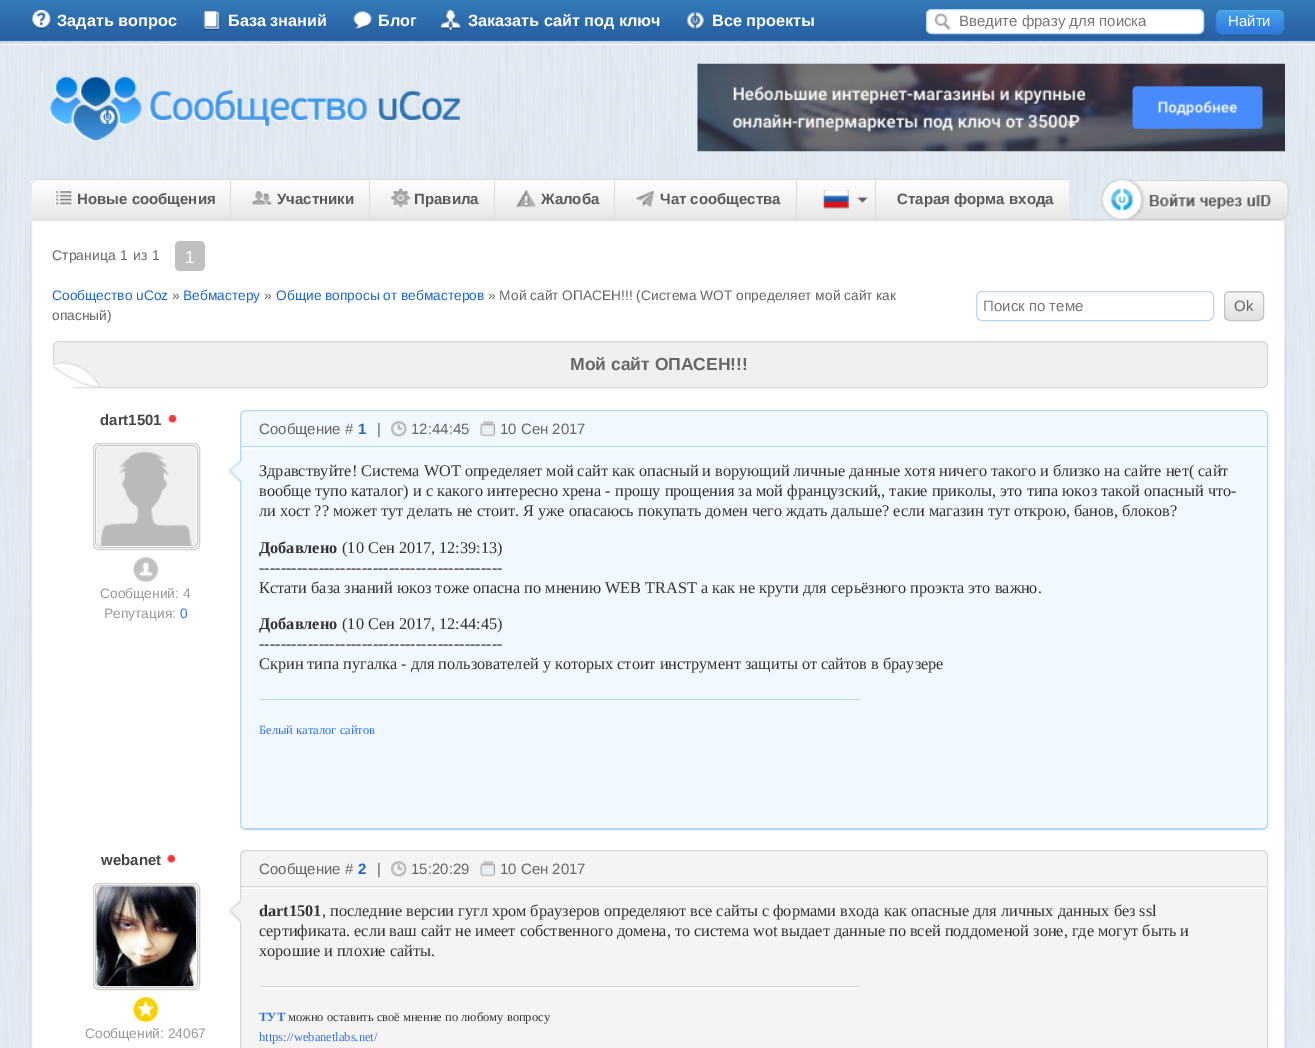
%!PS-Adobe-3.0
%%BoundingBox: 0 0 1315 1048
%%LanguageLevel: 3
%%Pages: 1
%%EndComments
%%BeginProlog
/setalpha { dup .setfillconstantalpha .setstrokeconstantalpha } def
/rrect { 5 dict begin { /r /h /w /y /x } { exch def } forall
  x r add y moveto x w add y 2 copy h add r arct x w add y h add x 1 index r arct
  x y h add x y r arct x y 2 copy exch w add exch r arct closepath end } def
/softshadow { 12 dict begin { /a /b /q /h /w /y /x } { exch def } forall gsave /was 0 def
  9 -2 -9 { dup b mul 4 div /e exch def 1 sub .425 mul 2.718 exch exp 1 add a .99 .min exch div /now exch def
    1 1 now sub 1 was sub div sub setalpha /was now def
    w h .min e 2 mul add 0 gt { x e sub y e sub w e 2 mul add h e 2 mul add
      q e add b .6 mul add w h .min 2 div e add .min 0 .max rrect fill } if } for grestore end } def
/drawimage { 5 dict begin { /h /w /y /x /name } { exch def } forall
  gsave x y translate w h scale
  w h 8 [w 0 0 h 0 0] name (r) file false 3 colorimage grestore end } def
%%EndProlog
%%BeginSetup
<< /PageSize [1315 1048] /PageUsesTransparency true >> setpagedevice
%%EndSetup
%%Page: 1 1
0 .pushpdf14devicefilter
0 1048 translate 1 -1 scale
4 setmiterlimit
1 setgray
0 0 1315 1048 rectfill
(images/1.raw) 0 45 1315 1003 drawimage
(images/2.raw) 0 0 1315 45 drawimage
(images/3.raw) 32 10 19 19 drawimage
(images/4.raw) 203 11 16 20 drawimage
(images/5.raw) 353 11 19 19 drawimage
(images/6.raw) 441 10 20 22 drawimage
(images/7.raw) 687 12 17 18 drawimage
926 9 278 25 6 rrect fill
(images/8.raw) 934 13 17 17 drawimage
0.714 0.847 0.965 setrgbcolor
926.5 9.5 277 24 5.5 rrect stroke
(images/9.raw) 1215 10 70 25 drawimage
(images/10.raw) 50 76 410 66 drawimage
(images/11.raw) 697 63 588 89 drawimage
gsave
newpath 37 179 moveto 231 179 lineto 231 220 lineto 31 220 lineto 31 185 lineto 31 181.5 33.5 179 37 179 curveto closepath clip newpath
gsave newpath 31 179 moveto 231 179 lineto 231 180 lineto 31 180 lineto closepath clip newpath
<< /ShadingType 2 /ColorSpace /DeviceRGB /Coords [131 141 131 180] /Extend [true true] /Function << /FunctionType 2 /Domain [0 1] /C0 [1 1 1] /C1 [0.906 0.906 0.906] /N 1 >> >> shfill grestore
grestore
0 setgray
31 220 1254 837 6 1 0.18 softshadow
gsave
newpath 37 179 moveto 231 179 lineto 231 220 lineto 31 220 lineto 31 185 lineto 31 181.5 33.5 179 37 179 curveto closepath clip newpath
gsave newpath 31 180 moveto 230 180 lineto 230 219 lineto 31 219 lineto closepath clip newpath
<< /ShadingType 2 /ColorSpace /DeviceRGB /Coords [131 180 131 219] /Extend [true true] /Function << /FunctionType 2 /Domain [0 1] /C0 [1 1 1] /C1 [0.906 0.906 0.906] /N 1 >> >> shfill grestore
grestore
0.863 setgray
newpath 38 179 moveto 36 179 34 180 33 181 curveto 34 181 lineto 37 180 lineto 230 180 lineto 231 179 lineto closepath fill
newpath 231 220 moveto 231 179 lineto 230 180 lineto 230 219 lineto closepath fill
newpath 31 220 moveto 231 220 lineto 230 219 lineto 32 219 lineto closepath fill
0.906 setgray
newpath 31 220 moveto 32 219 lineto 32 185 lineto 32 183.5 33 182 34 181.5 curveto 33 180.5 lineto 32.5 181.5 31.5 182.5 31 183.5 curveto closepath fill
(images/12.raw) 55 191 17 15 drawimage
gsave newpath 231 180 moveto 369 180 lineto 369 219 lineto 231 219 lineto closepath clip newpath
<< /ShadingType 2 /ColorSpace /DeviceRGB /Coords [300 180 300 219] /Extend [true true] /Function << /FunctionType 2 /Domain [0 1] /C0 [1 1 1] /C1 [0.906 0.906 0.906] /N 1 >> >> shfill grestore
0.863 setgray
231 179 645 1 rectfill
369 179 1 41 rectfill
231 219 139 1 rectfill
(images/13.raw) 252 191 20 15 drawimage
gsave newpath 370 180 moveto 494 180 lineto 494 219 lineto 370 219 lineto closepath clip newpath
<< /ShadingType 2 /ColorSpace /DeviceRGB /Coords [432 180 432 219] /Extend [true true] /Function << /FunctionType 2 /Domain [0 1] /C0 [1 1 1] /C1 [0.906 0.906 0.906] /N 1 >> >> shfill grestore
494 179 1 41 rectfill
370 219 125 1 rectfill
(images/14.raw) 391 188 19 21 drawimage
gsave newpath 495 180 moveto 614 180 lineto 614 219 lineto 495 219 lineto closepath clip newpath
<< /ShadingType 2 /ColorSpace /DeviceRGB /Coords [554 180 554 219] /Extend [true true] /Function << /FunctionType 2 /Domain [0 1] /C0 [1 1 1] /C1 [0.906 0.906 0.906] /N 1 >> >> shfill grestore
614 179 1 41 rectfill
495 219 120 1 rectfill
(images/15.raw) 516 190 21 19 drawimage
gsave newpath 615 180 moveto 798 180 lineto 798 219 lineto 615 219 lineto closepath clip newpath
<< /ShadingType 2 /ColorSpace /DeviceRGB /Coords [706 180 706 219] /Extend [true true] /Function << /FunctionType 2 /Domain [0 1] /C0 [1 1 1] /C1 [0.906 0.906 0.906] /N 1 >> >> shfill grestore
796 179 1 41 rectfill
615 219 183 1 rectfill
(images/16.raw) 636 191 18 17 drawimage
gsave newpath 798 180 moveto 875 180 lineto 875 219 lineto 798 219 lineto closepath clip newpath
<< /ShadingType 2 /ColorSpace /DeviceRGB /Coords [836 180 836 219] /Extend [true true] /Function << /FunctionType 2 /Domain [0 1] /C0 [1 1 1] /C1 [0.906 0.906 0.906] /N 1 >> >> shfill grestore
875 179 1 41 rectfill
798 219 78 1 rectfill
(images/17.raw) 823 190 26 19 drawimage
(images/18.raw) 857 197 12 7 drawimage
gsave
newpath 876 179 moveto 1064 179 lineto 1067.5 179 1070 181.5 1070 185 curveto 1070 220 lineto 876 220 lineto closepath clip newpath
gsave newpath 1065 179 moveto 1070 179 lineto 1070 180 lineto 1065 180 lineto closepath clip newpath
<< /ShadingType 2 /ColorSpace /DeviceRGB /Coords [973 141 973 180] /Extend [true true] /Function << /FunctionType 2 /Domain [0 1] /C0 [1 1 1] /C1 [0.906 0.906 0.906] /N 1 >> >> shfill grestore
gsave newpath 876 180 moveto 1070 180 lineto 1070 219 lineto 876 219 lineto closepath clip newpath
<< /ShadingType 2 /ColorSpace /DeviceRGB /Coords [973 180 973 219] /Extend [true true] /Function << /FunctionType 2 /Domain [0 1] /C0 [1 1 1] /C1 [0.906 0.906 0.906] /N 1 >> >> shfill grestore
grestore
newpath 876 180 moveto 876 179 lineto 1065 179 lineto 1068 181 lineto 1067 181 lineto 1065 180 lineto closepath fill
0.906 setgray
newpath 1068 181 moveto 1069 182 1070 183.5 1070 185 curveto 1070 220 lineto 1069 219 lineto 1069 185 lineto 1069 183.5 1068.5 182 1067.5 181.5 curveto closepath fill
0.863 setgray
newpath 1070 220 moveto 876 220 lineto 876 219 lineto 1069 219 lineto closepath fill
(images/19.raw) 1101 178 188 42 drawimage
1 setgray
newpath 31.5 220.5 moveto 1284.5 220.5 lineto 1284.5 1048.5 lineto 31.5 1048.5 lineto closepath gsave fill grestore
0.906 setgray
stroke
0.753 setgray
175 241 30 30 5 rrect fill
0.714 0.847 0.965 setrgbcolor
976.5 291.5 237 29 5.5 rrect stroke
gsave
1224 291 40 30 6 rrect clip newpath
gsave newpath 1224 291 moveto 1264 291 lineto 1264 293 lineto 1224 293 lineto closepath clip newpath
<< /ShadingType 2 /ColorSpace /DeviceRGB /Coords [1244 265 1244 293] /Extend [true true] /Function << /FunctionType 2 /Domain [0 1] /C0 [0.969 0.969 0.969] /C1 [0.882 0.882 0.882] /N 1 >> >> shfill grestore
gsave newpath 1224 293 moveto 1264 293 lineto 1264 320 lineto 1224 320 lineto closepath clip newpath
<< /ShadingType 2 /ColorSpace /DeviceRGB /Coords [1244 293 1244 320] /Extend [true true] /Function << /FunctionType 2 /Domain [0 1] /C0 [0.969 0.969 0.969] /C1 [0.882 0.882 0.882] /N 1 >> >> shfill grestore
grestore
0.769 setgray
1224.5 291.5 39 29 5.5 rrect stroke
0.937 0.941 0.941 setrgbcolor
newpath 59 341.5 moveto 1262 341.5 lineto 1265 341.5 1267.5 344 1267.5 347 curveto 1267.5 382 lineto 1267.5 385 1265 387.5 1262 387.5 curveto 78 387.5 lineto 64.5 387.5 53.5 376.5 53.5 363 curveto 53.5 347 lineto 53.5 344 56 341.5 59 341.5 curveto closepath gsave fill grestore
0.843 setgray
stroke
(images/20.raw) 52 361 48 27 drawimage
(images/21.raw) 168 415 9 8 drawimage
0.812 setgray
93.5 443.5 106 106 5.5 rrect stroke
0.776 setgray
95.5 445.5 102 102 5.5 rrect stroke
(images/22.raw) 96 446 100 101 drawimage
(images/23.raw) 133 556 26 27 drawimage
0.945 0.973 0.996 setrgbcolor
240.5 410.5 1027 419 5.5 rrect gsave fill grestore
0.71 0.843 0.957 setrgbcolor
stroke
0.714 0.847 0.965 setrgbcolor
241 446 1025 1 rectfill
(images/24.raw) 391 421 16 16 drawimage
(images/25.raw) 480 421 15 16 drawimage
(images/26.raw) 228 460 14 23 drawimage
1 setgray
241 448 1025 1 rectfill
0.714 0.847 0.965 setrgbcolor
241 828 1025 1 rectfill
260 699 600 1 rectfill
1 setgray
260 700 600 1 rectfill
(images/27.raw) 167 855 8 8 drawimage
0.812 setgray
93.5 883.5 106 106 5.5 rrect stroke
0.776 setgray
95.5 885.5 102 102 5.5 rrect stroke
(images/28.raw) 96 886 101 101 drawimage
(images/29.raw) 132 996 27 27 drawimage
0.957 setgray
240.5 850.5 1027 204 5.5 rrect gsave fill grestore
0.843 setgray
stroke
241 886 1025 1 rectfill
(images/30.raw) 391 861 16 16 drawimage
(images/31.raw) 480 861 15 16 drawimage
(images/32.raw) 228 900 14 23 drawimage
1 setgray
241 888 1025 1 rectfill
0.843 setgray
260 986 600 1 rectfill
1 setgray
260 988 600 1 rectfill
/LiberationSans-Bold [16.25 0 0 -16.25 0 0] selectfont
57 26 moveto (Задать вопрос) show
228 26 moveto (База знаний) show
378 26 moveto (Блог) show
468 26 moveto (Заказать сайт под ключ) show
712 26 moveto (Все проекты) show
/LiberationSans-Regular [15 0 0 -15 0 0] selectfont
0.459 setgray
959 26 moveto (Введите фразу для поиска) show
1 setgray
1228 26 moveto (Найти) show
/LiberationSans-Bold [15 0 0 -15 0 0] selectfont
0.349 setgray
77 204 moveto (Новые сообщения) show
277 204 moveto (Участники) show
414 204 moveto (Правила) show
541 204 moveto (Жалоба) show
660 204 moveto (Чат сообщества) show
897 204 moveto (Старая форма входа) show
/LiberationSans-Regular [14 0 0 -14 0 0] selectfont
0.4 setgray
52 260 moveto (Страница) show
120 260 moveto (1) show
133 260 moveto (из) show
152 260 moveto (1) show
/LiberationSans-Regular [17.5 0 0 -17.5 0 0] selectfont
1 setgray
185 263 moveto (1) show
/LiberationSans-Regular [13.75 0 0 -13.75 0 0] selectfont
0.118 0.408 0.769 setrgbcolor
52 300 moveto (Сообщество uCoz) show
0.4 setgray
172 300 moveto (») show
0.118 0.408 0.769 setrgbcolor
183 300 moveto (Вебмастеру) show
0.4 setgray
264 300 moveto (») show
0.118 0.408 0.769 setrgbcolor
276 300 moveto (Общие вопросы от вебмастеров) show
0.4 setgray
488 300 moveto (» Мой сайт ОПАСЕН!!! \(Система WOT определяет мой сайт как) show
52 320 moveto (опасный\)) show
/LiberationSans-Regular [15 0 0 -15 0 0] selectfont
0.459 setgray
983 311 moveto (Поиск по теме) show
0.4 setgray
1234 311 moveto (Ok) show
/LiberationSans-Bold [17.5 0 0 -17.5 0 0] selectfont
570 370 moveto (Мой сайт ОПАСЕН!!!) show
/LiberationSans-Bold [15 0 0 -15 0 0] selectfont
0.267 setgray
100 425 moveto (dart1501) show
/LiberationSans-Regular [13.75 0 0 -13.75 0 0] selectfont
0.596 setgray
100 598 moveto (Сообщений: 4) show
104 618 moveto (Репутация:) show
0.176 0.443 0.871 setrgbcolor
180 618 moveto (0) show
/LiberationSans-Regular [15 0 0 -15 0 0] selectfont
0.4 setgray
259 434 moveto (Сообщение #) show
/LiberationSans-Bold [15 0 0 -15 0 0] selectfont
0.118 0.408 0.769 setrgbcolor
358 434 moveto (1) show
/LiberationSans-Regular [15 0 0 -15 0 0] selectfont
0.4 setgray
377 434 moveto (|) show
411 434 moveto (12:44:45) show
500 434 moveto (10 Сен 2017) show
/LiberationSerif-Regular [16.25 0 0 -16.25 0 0] selectfont
0.2 setgray
259 476 moveto (Здравствуйте! Система WOT определяет мой сайт как опасный и ворующий личные данные хотя ничего такого и близко на сайте нет\( сайт) show
259 496 moveto (вообще тупо каталог\) и с какого интересно хрена - прошу прощения за мой французский,, такие приколы, это типа юкоз такой опасный что-) show
259 516 moveto (ли хост ?? может тут делать не стоит. Я уже опасаюсь покупать домен чего ждать дальше? если магазин тут открою, банов, блоков?) show
/LiberationSerif-Bold [16.25 0 0 -16.25 0 0] selectfont
259 553 moveto (Добавлено) show
/LiberationSerif-Regular [16.25 0 0 -16.25 0 0] selectfont
342 553 moveto (\(10 Сен 2017, 12:39:13\)) show
259 573 moveto (---------------------------------------------) show
259 593 moveto (Кстати база знаний юкоз тоже опасна по мнению WEB TRAST а как не крути для серьёзного проэкта это важно.) show
/LiberationSerif-Bold [16.25 0 0 -16.25 0 0] selectfont
259 629 moveto (Добавлено) show
/LiberationSerif-Regular [16.25 0 0 -16.25 0 0] selectfont
342 629 moveto (\(10 Сен 2017, 12:44:45\)) show
259 649 moveto (---------------------------------------------) show
259 669 moveto (Скрин типа пугалка - для пользователей у которых стоит инструмент защиты от сайтов в браузере) show
/LiberationSerif-Regular [12.5 0 0 -12.5 0 0] selectfont
0.176 0.443 0.871 setrgbcolor
259 734 moveto (Белый каталог сайтов) show
/LiberationSans-Bold [15 0 0 -15 0 0] selectfont
0.267 setgray
101 865 moveto (webanet) show
/LiberationSans-Regular [13.75 0 0 -13.75 0 0] selectfont
0.596 setgray
85 1038 moveto (Сообщений: 24067) show
/LiberationSans-Regular [15 0 0 -15 0 0] selectfont
0.4 setgray
259 874 moveto (Сообщение #) show
/LiberationSans-Bold [15 0 0 -15 0 0] selectfont
0.118 0.408 0.769 setrgbcolor
358 874 moveto (2) show
/LiberationSans-Regular [15 0 0 -15 0 0] selectfont
0.4 setgray
377 874 moveto (|) show
411 874 moveto (15:20:29) show
500 874 moveto (10 Сен 2017) show
/LiberationSerif-Bold [16.25 0 0 -16.25 0 0] selectfont
0.2 setgray
259 916 moveto (dart1501) show
/LiberationSerif-Regular [16.25 0 0 -16.25 0 0] selectfont
322 916 moveto (, последние версии гугл хром браузеров определяют все сайты с формами входа как опасные для личных данных без ssl) show
259 936 moveto (сертификата. если ваш сайт не имеет собственного домена, то система wot выдает данные по всей поддоменой зоне, где могут быть и) show
259 956 moveto (хорошие и плохие сайты.) show
/LiberationSerif-Bold [12.5 0 0 -12.5 0 0] selectfont
0.176 0.443 0.871 setrgbcolor
259 1021 moveto (ТУТ) show
/LiberationSerif-Regular [12.5 0 0 -12.5 0 0] selectfont
0.2 setgray
288 1021 moveto (можно оставить своё мнение по любому вопросу) show
0.176 0.443 0.871 setrgbcolor
259 1041 moveto (https://webanetlabs.net/) show
.poppdf14devicefilter showpage
%%EOF
